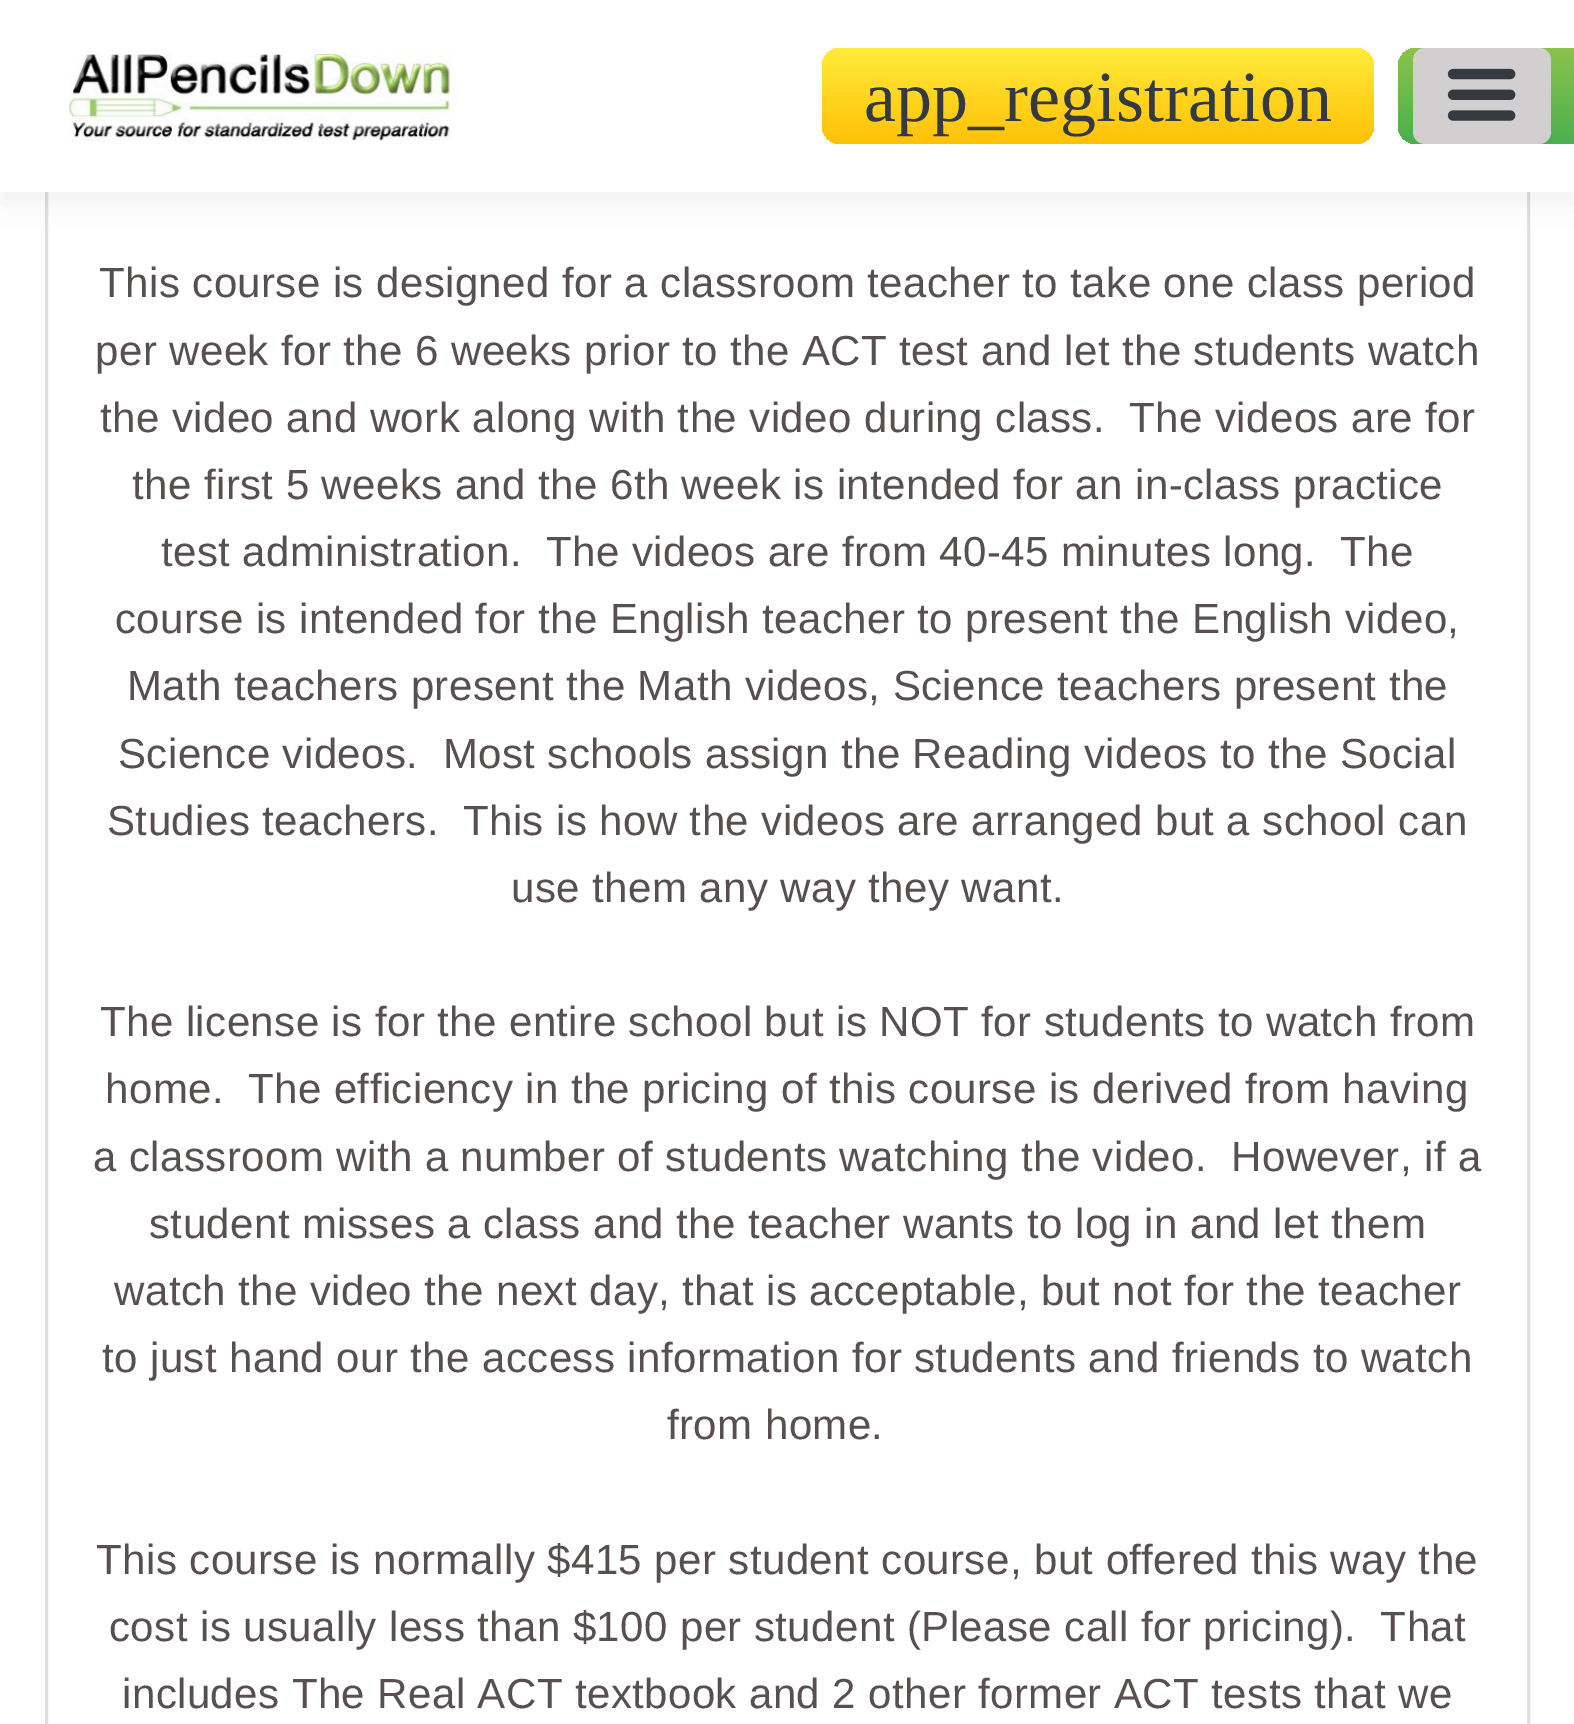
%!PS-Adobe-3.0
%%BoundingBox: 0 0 1574 1724
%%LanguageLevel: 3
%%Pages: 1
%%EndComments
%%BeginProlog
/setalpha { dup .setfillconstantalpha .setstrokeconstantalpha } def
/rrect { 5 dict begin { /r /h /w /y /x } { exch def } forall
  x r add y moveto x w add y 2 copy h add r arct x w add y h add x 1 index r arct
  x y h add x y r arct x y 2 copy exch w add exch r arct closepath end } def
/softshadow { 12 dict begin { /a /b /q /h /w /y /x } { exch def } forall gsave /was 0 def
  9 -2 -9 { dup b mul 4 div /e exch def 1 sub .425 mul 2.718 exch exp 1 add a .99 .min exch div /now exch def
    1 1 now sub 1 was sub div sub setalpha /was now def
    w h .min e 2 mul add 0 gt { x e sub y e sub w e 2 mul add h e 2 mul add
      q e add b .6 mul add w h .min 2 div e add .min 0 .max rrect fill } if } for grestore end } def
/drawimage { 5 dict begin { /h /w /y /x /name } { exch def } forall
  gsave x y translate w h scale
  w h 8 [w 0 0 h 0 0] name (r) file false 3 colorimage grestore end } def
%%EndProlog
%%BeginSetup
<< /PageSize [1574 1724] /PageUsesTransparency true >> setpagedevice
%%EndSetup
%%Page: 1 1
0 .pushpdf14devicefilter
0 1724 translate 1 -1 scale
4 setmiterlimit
1 setgray
0 0 1574 1724 rectfill
0.875 setgray
3 setlinewidth
46.5 -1.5 1482 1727 rectstroke
0 setgray
0 12 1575 192 0 15 0.06 softshadow
1 setgray
0 0 1574 192 rectfill
(images/1.raw) 69 54 384 87 drawimage
gsave 822 48 552 96 18 rrect clip newpath
<< /ShadingType 2 /ColorSpace /DeviceRGB /Coords [1098 48 1098 144] /Extend [true true] /Function << /FunctionType 2 /Domain [0 1] /C0 [1 0.922 0.231] /C1 [1 0.757 0.027] /N 1 >> >> shfill grestore
gsave 1398 48 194 96 18 rrect clip newpath
<< /ShadingType 2 /ColorSpace /DeviceRGB /Coords [1514 48 1514 144] /Extend [true true] /Function << /FunctionType 2 /Domain [0 1] /C0 [0.545 0.765 0.29] /C1 [0.298 0.686 0.314] /N 1 >> >> shfill grestore
0.82 0.812 0.812 setrgbcolor
1413 48 138 96 12 rrect fill
(images/2.raw) 1447 68 69 53 drawimage
/LiberationSerif-Regular [72 0 0 -72 0 0] selectfont
0.204 0.227 0.251 setrgbcolor
864 121 moveto (app_registration) show
/LiberationSans-Regular [42 0 0 -42 0 0] selectfont
0.345 0.314 0.314 setrgbcolor
99 297 moveto 0.42 0 (This course is designed for a classroom teacher to take one class period) ashow
95 365 moveto 0.42 0 (per week for the 6 weeks prior to the ACT test and let the students watch) ashow
100 432 moveto 0.42 0 (the video and work along with the video during class.  The videos are for) ashow
132 499 moveto 0.42 0 (the first 5 weeks and the 6th week is intended for an in-class practice) ashow
161 566 moveto 0.42 0 (test administration.  The videos are from 40-45 minutes long.  The) ashow
115 633 moveto 0.42 0 (course is intended for the English teacher to present the English video,) ashow
127 700 moveto 0.42 0 (Math teachers present the Math videos, Science teachers present the) ashow
118 768 moveto 0.42 0 (Science videos.  Most schools assign the Reading videos to the Social) ashow
107 835 moveto 0.42 0 (Studies teachers.  This is how the videos are arranged but a school can) ashow
511 902 moveto 0.42 0 (use them any way they want.) ashow
100 1036 moveto 0.42 0 (The license is for the entire school but is NOT for students to watch from) ashow
105 1103 moveto 0.42 0 (home.  The efficiency in the pricing of this course is derived from having) ashow
93 1171 moveto 0.42 0 (a classroom with a number of students watching the video.  However, if a) ashow
149 1238 moveto 0.42 0 (student misses a class and the teacher wants to log in and let them) ashow
114 1305 moveto 0.42 0 (watch the video the next day, that is acceptable, but not for the teacher) ashow
102 1372 moveto 0.42 0 (to just hand our the access information for students and friends to watch) ashow
667 1439 moveto 0.42 0 (from home.) ashow
96 1574 moveto 0.42 0 (This course is normally $415 per student course, but offered this way the) ashow
109 1641 moveto 0.42 0 (cost is usually less than $100 per student \(Please call for pricing\).  That) ashow
122 1708 moveto 0.42 0 (includes The Real ACT textbook and 2 other former ACT tests that we) ashow
.poppdf14devicefilter showpage
%%EOF
